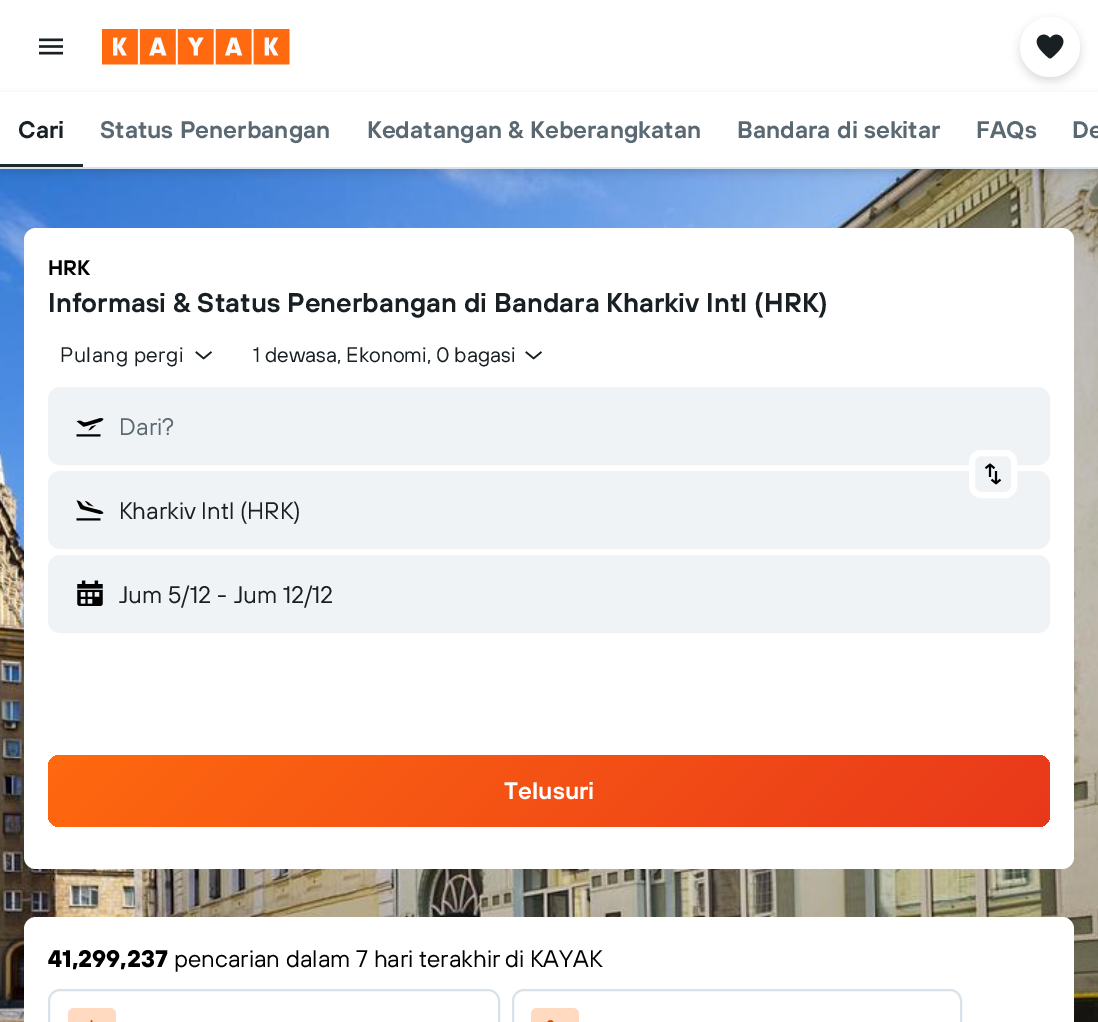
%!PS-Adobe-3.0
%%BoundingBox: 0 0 1098 1022
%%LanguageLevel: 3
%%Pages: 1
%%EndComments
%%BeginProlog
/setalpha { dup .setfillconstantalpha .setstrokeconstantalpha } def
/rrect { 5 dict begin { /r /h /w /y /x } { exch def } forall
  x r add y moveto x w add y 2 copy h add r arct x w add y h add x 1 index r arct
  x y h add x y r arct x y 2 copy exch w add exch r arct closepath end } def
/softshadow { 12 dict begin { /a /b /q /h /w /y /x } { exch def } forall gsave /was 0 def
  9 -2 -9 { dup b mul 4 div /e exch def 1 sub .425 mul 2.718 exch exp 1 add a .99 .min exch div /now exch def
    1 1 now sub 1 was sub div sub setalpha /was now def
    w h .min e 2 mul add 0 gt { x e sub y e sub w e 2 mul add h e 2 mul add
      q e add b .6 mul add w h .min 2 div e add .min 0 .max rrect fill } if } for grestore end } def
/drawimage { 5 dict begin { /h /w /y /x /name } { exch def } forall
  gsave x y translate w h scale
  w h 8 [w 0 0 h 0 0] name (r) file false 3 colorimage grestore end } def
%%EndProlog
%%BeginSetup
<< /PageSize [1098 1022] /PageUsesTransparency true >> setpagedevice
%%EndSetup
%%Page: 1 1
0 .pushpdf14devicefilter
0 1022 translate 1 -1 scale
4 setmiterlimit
1 setgray
0 0 1098 1022 rectfill
(images/1.raw) 39 38 24 17 drawimage
(images/2.raw) 102 29 188 36 drawimage
(images/4.raw) 0 169 1098 853 drawimage
0.098 0.125 0.141 setrgbcolor
0 96 1098 77 0 4.5 0.16 softshadow
1 setgray
0 92 1098 75 rectfill
0.098 0.125 0.141 setrgbcolor
1020 21 60 60 30 4.5 0.16 softshadow
1 setgray
newpath 1050 47 30 0 360 arc closepath fill
(images/3.raw) 1036 34 28 25 drawimage
0.851 0.886 0.91 setrgbcolor
0 167 1098 2 rectfill
0.122 0.157 0.176 setrgbcolor
0 164 83 3 rectfill
1 setgray
24 228 1050 641 12 rrect fill
(images/5.raw) 195 351 17 9 drawimage
(images/5.raw) 525 351 17 9 drawimage
0.941 0.953 0.961 setrgbcolor
49 388 1000 76 11 rrect gsave fill grestore
2 setlinewidth
stroke
(images/6.raw) 76 418 28 19 drawimage
49 472 1000 76 11 rrect gsave fill grestore
stroke
newpath 1017 462 moveto 1017 486 lineto 1017 493 1012 498 1005 498 curveto 981 498 lineto 974 498 969 493 969 486 curveto 969 462 lineto 969 455 974 450 981 450 curveto 1005 450 lineto 1012 450 1017 455 1017 462 curveto closepath fill
1 setgray
6 setlinewidth
newpath 1014 462 moveto 1014 486 lineto 1014 491 1010 495 1005 495 curveto 981 495 lineto 976 495 972 491 972 486 curveto 972 462 lineto 972 457 976 453 981 453 curveto 1005 453 lineto 1010 453 1014 457 1014 462 curveto closepath stroke
(images/7.raw) 984 463 18 22 drawimage
(images/8.raw) 76 500 28 21 drawimage
0.941 0.953 0.961 setrgbcolor
49 556 1000 76 11 rrect gsave fill grestore
2 setlinewidth
stroke
(images/9.raw) 77 580 26 26 drawimage
gsave 48 755 1002 72 12 rrect clip newpath
<< /ShadingType 2 /ColorSpace /DeviceRGB /Coords [281 522 818 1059] /Extend [true true] /Function << /FunctionType 2 /Domain [0 1] /C0 [1 0.412 0.059] /C1 [0.91 0.22 0.106] /N 1 >> >> shfill grestore
1 setgray
24 917 1050 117 12 rrect fill
0.851 0.886 0.91 setrgbcolor
49 990 450 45 11 rrect stroke
1 0.855 0.757 setrgbcolor
68 1008 48 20 6 rrect fill
(images/10.raw) 90 1020 3 2 drawimage
0.851 0.886 0.91 setrgbcolor
513 990 448 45 11 rrect stroke
1 0.855 0.757 setrgbcolor
531 1008 48 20 6 rrect fill
(images/11.raw) 547 1020 7 2 drawimage
/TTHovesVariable-SemiBold [24 0 0 -24 0 0] selectfont
0.098 0.125 0.141 setrgbcolor
18 138 moveto (Cari) show
0.353 0.408 0.447 setrgbcolor
100 138 moveto (Status Penerbangan) show
367 138 moveto (Kedatangan & Keberangkatan) show
737 138 moveto (Bandara di sekitar) show
976 138 moveto (FAQs) show
1072 138 moveto (De) show
/TTHovesVariable-SemiBold [21 0 0 -21 0 0] selectfont
0 setgray
48 275 moveto (HRK) show
/TTHovesVariable-SemiBold [27 0 0 -27 0 0] selectfont
0.098 0.125 0.141 setrgbcolor
48 312 moveto (Informasi & Status Penerbangan di Bandara Kharkiv Intl \(HRK\)) show
/TTHovesVariable-Regular [21 0 0 -21 0 0] selectfont
60 362 moveto 0.5 0 (Pulang pergi) ashow
253 362 moveto (1 dewasa, Ekonomi, 0 bagasi) show
/TTHovesVariable-Regular [24 0 0 -24 0 0] selectfont
0.353 0.408 0.447 setrgbcolor
119 435 moveto (Dari?) show
0.098 0.125 0.141 setrgbcolor
119 519 moveto (Kharkiv Intl \(HRK\)) show
119 603 moveto (Jum 5/12) show
217 603 moveto (-) show
234 603 moveto (Jum 12/12) show
/TTHovesVariable-SemiBold [24 0 0 -24 0 0] selectfont
1 setgray
504 799 moveto (Telusuri) show
/TTHovesVariable-Bold [24 0 0 -24 0 0] selectfont
0 setgray
48 967 moveto (41,299,237) show
/TTHovesVariable-Regular [24 0 0 -24 0 0] selectfont
174 967 moveto (pencarian dalam 7 hari terakhir di KAYAK) show
.poppdf14devicefilter showpage
%%EOF
